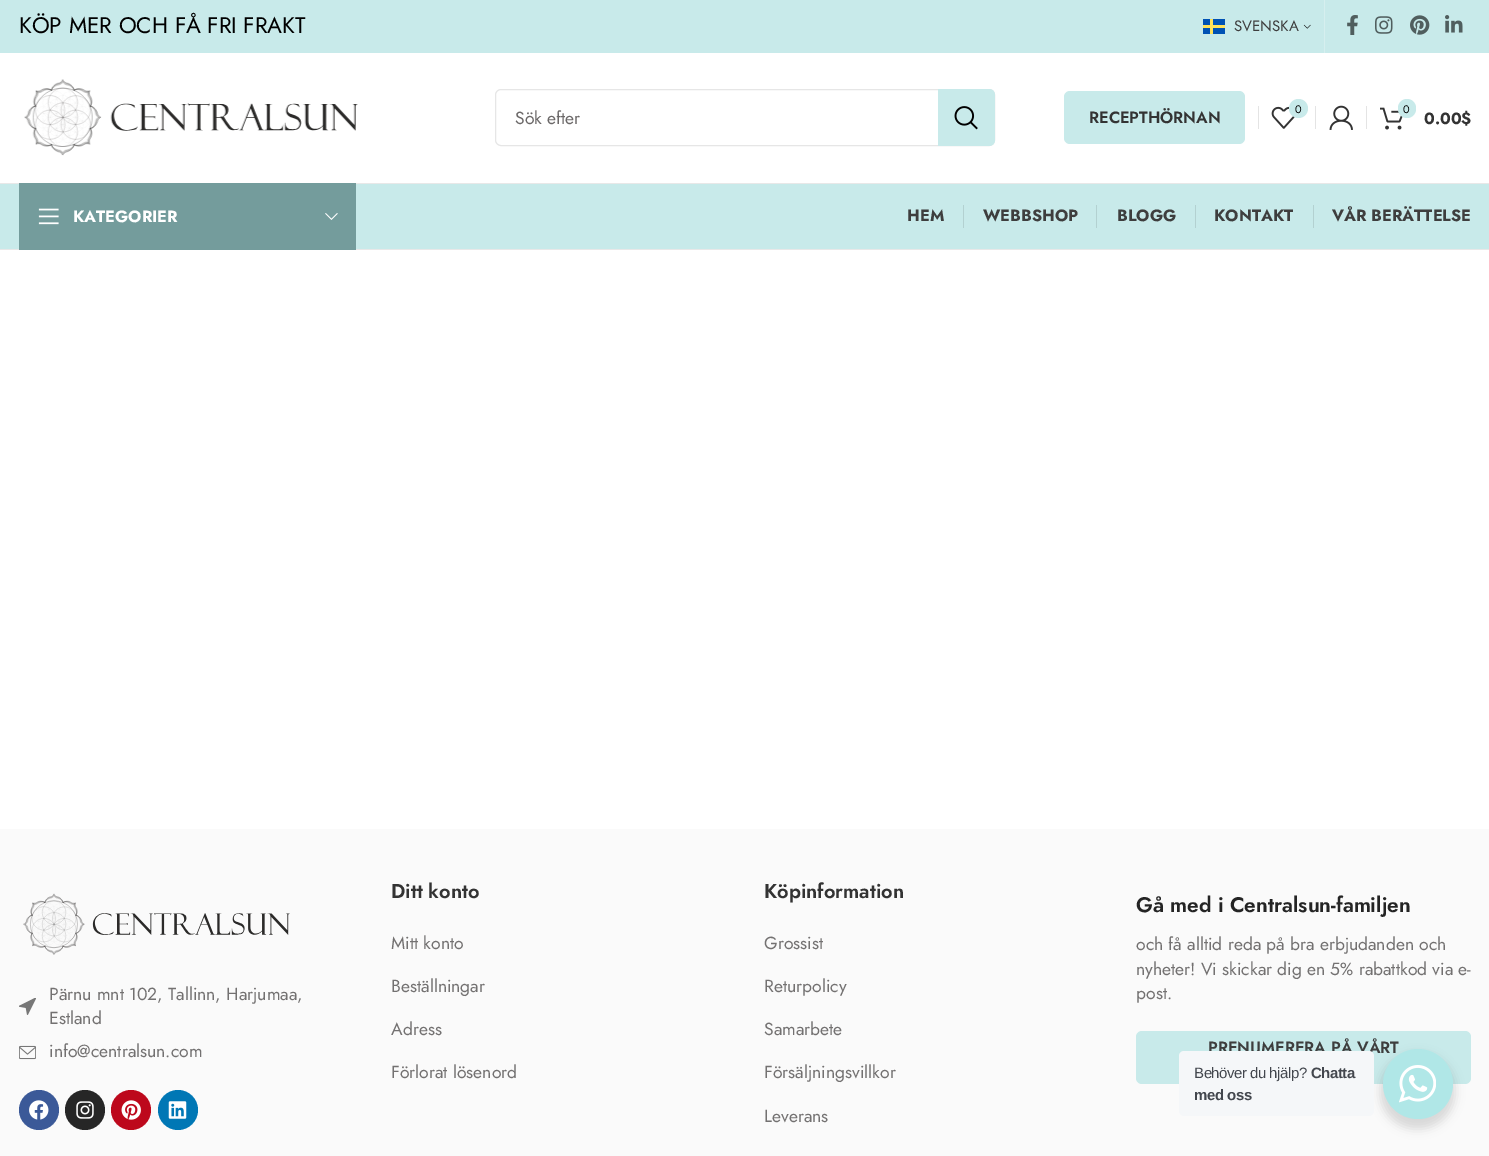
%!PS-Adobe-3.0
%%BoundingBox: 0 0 1489 1156
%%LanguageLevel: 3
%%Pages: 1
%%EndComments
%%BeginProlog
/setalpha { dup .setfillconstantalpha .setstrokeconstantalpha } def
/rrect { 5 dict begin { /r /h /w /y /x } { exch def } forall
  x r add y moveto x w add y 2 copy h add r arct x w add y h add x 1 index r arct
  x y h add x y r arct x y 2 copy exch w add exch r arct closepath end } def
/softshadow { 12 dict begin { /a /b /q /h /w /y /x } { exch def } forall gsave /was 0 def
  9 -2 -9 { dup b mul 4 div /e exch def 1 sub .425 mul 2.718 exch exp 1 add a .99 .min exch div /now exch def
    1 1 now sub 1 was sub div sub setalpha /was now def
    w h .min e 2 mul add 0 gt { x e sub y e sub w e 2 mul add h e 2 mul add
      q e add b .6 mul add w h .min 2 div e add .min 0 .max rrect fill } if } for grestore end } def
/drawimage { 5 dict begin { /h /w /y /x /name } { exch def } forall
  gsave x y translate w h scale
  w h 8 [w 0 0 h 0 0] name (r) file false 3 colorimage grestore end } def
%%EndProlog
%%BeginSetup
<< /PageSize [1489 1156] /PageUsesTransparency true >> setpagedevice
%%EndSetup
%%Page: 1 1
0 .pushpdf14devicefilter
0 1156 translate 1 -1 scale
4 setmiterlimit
1 setgray
0 0 1489 1156 rectfill
0.784 0.918 0.918 setrgbcolor
0 0 1489 53 rectfill
0 0.322 0.706 setrgbcolor
1203 19 22 15 rectfill
1 0.882 0.353 setrgbcolor
1210 19 3 15 rectfill
1203 25 22 3 rectfill
(images/1.raw) 1303 24 8 5 drawimage
0.839 0.937 0.937 setrgbcolor
1324 0 1 53 rectfill
(images/2.raw) 1347 15 11 20 drawimage
(images/3.raw) 1375 16 18 18 drawimage
(images/4.raw) 1410 15 20 20 drawimage
(images/5.raw) 1445 15 18 18 drawimage
0.91 setgray
0 183 1489 1 rectfill
(images/6.raw) 24 79 334 77 drawimage
0.902 setgray
495.5 89.5 499 56 5.5 rrect stroke
0.784 0.918 0.918 setrgbcolor
newpath 938 89 moveto 989 89 lineto 992.5 89 995 91.5 995 95 curveto 995 140 lineto 995 143.5 992.5 146 989 146 curveto 938 146 lineto closepath fill
(images/7.raw) 954 106 24 24 drawimage
1064 91 181 53 6 rrect fill
0.894 setgray
1258 106 1 23 rectfill
(images/8.raw) 1271 106 24 23 drawimage
0.784 0.918 0.918 setrgbcolor
newpath 1298.5 108.5 9.5 0 360 arc closepath fill
0.894 setgray
1315 106 1 23 rectfill
(images/9.raw) 1329 105 24 25 drawimage
1366 106 1 23 rectfill
(images/10.raw) 1380 107 23 23 drawimage
0.784 0.918 0.918 setrgbcolor
1398 99 18 19 9 rrect fill
0 184 1489 65 rectfill
0.91 setgray
0 249 1489 1 rectfill
0.455 0.612 0.612 setrgbcolor
19 183 337 67 rectfill
(images/11.raw) 38 208 21 17 drawimage
(images/12.raw) 325 213 13 7 drawimage
0.702 0.82 0.82 setrgbcolor
963 205 1 23 rectfill
1096 205 1 23 rectfill
1195 205 1 23 rectfill
1313 205 1 23 rectfill
0.98 setgray
0 829 1489 327 rectfill
(images/13.raw) 23 893 267 62 drawimage
(images/14.raw) 19 998 17 17 drawimage
(images/15.raw) 19 1045 17 15 drawimage
0.231 0.349 0.596 setrgbcolor
newpath 39 1110 20 0 360 arc closepath fill
(images/16.raw) 29 1100 20 20 drawimage
0.149 setgray
newpath 85 1110 20 0 360 arc closepath fill
(images/17.raw) 76 1101 18 18 drawimage
0.741 0.031 0.11 setrgbcolor
newpath 131 1110 20 0 360 arc closepath fill
(images/18.raw) 121 1100 20 20 drawimage
0 0.467 0.71 setrgbcolor
newpath 178 1110 20 0 360 arc closepath fill
(images/19.raw) 168 1101 19 18 drawimage
0.784 0.918 0.918 setrgbcolor
1136 1031 335 53 6 rrect fill
0 setgray
1380 1054 75 75 37.5 5 0.14 softshadow
/Jost-Regular [22.5 0 0 -22.5 0 0] selectfont
19 33 moveto (KÖP MER OCH FÅ FRI FRAKT) show
/Jost-Regular [15 0 0 -15 0 0] selectfont
0.243 setgray
1234 31 moveto (SVENSKA) show
/Jost-Regular [17.5 0 0 -17.5 0 0] selectfont
0.42 0.408 0.408 setrgbcolor
515 124 moveto (Sök efter) show
/Jost-SemiBold [16.25 0 0 -16.25 0 0] selectfont
0.2 setgray
1089 123 moveto (RECEPTHÖRNAN) show
/Jost-Regular [11 0 0 -11 0 0] selectfont
0 setgray
1295 113 moveto (0) show
1403 113 moveto (0) show
/Jost-Bold [16.25 0 0 -16.25 0 0] selectfont
0.2 setgray
1424 124 moveto (0.00$) show
1 setgray
73 222 moveto (KATEGORIER) show
0.243 setgray
907 221 moveto (HEM) show
983 221 moveto (WEBBSHOP) show
1117 221 moveto (BLOGG) show
1214 221 moveto (KONTAKT) show
1332 221 moveto (VÅR BERÄTTELSE) show
/Jost-Regular [17.5 0 0 -17.5 0 0] selectfont
0.451 0.443 0.443 setrgbcolor
49 1000 moveto (Pärnu mnt 102, Tallinn, Harjumaa,) show
49 1024 moveto (Estland) show
49 1057 moveto (info@centralsun.com) show
/Jost-SemiBold [20 0 0 -20 0 0] selectfont
0.2 setgray
391 898 moveto (Ditt konto) show
/Jost-Regular [17.5 0 0 -17.5 0 0] selectfont
0.451 0.443 0.443 setrgbcolor
391 949 moveto (Mitt konto) show
391 992 moveto (Beställningar) show
391 1035 moveto (Adress) show
391 1078 moveto (Förlorat lösenord) show
/Jost-SemiBold [20 0 0 -20 0 0] selectfont
0.2 setgray
764 898 moveto (Köpinformation) show
/Jost-Regular [17.5 0 0 -17.5 0 0] selectfont
0.451 0.443 0.443 setrgbcolor
764 949 moveto (Grossist) show
764 992 moveto (Returpolicy) show
764 1035 moveto (Samarbete) show
764 1078 moveto (Försäljningsvillkor) show
764 1122 moveto (Leverans) show
/Jost-SemiBold [21 0 0 -21 0 0] selectfont
0.141 setgray
1136 912 moveto (Gå med i Centralsun-familjen) show
/Jost-Regular [17.5 0 0 -17.5 0 0] selectfont
0.451 0.443 0.443 setrgbcolor
1136 950 moveto (och få alltid reda på bra erbjudanden och) show
1136 975 moveto (nyheter! Vi skickar dig en 5% rabattkod via e-) show
1136 999 moveto (post.) show
/Jost-SemiBold [16.25 0 0 -16.25 0 0] selectfont
0.243 setgray
1208 1053 moveto (PRENUMERERA PÅ VÅRT) show
0.961 0.969 0.976 setrgbcolor
1179 1051 195 65 5 rrect fill
/LiberationSans-Regular [15 0 0 -15 0 0] selectfont
0.263 0.278 0.306 setrgbcolor
1194 1078 moveto -0.5 0 (Behöver du hjälp?) ashow
/LiberationSans-Bold [15 0 0 -15 0 0] selectfont
1311 1078 moveto -0.5 0 (Chatta) ashow
1194 1100 moveto -0.5 0 (med oss) ashow
0.69 0.906 0.906 setrgbcolor
newpath 1418 1084 35 0 360 arc closepath fill
(images/20.raw) 1399 1065 37 38 drawimage
.poppdf14devicefilter showpage
%%EOF
